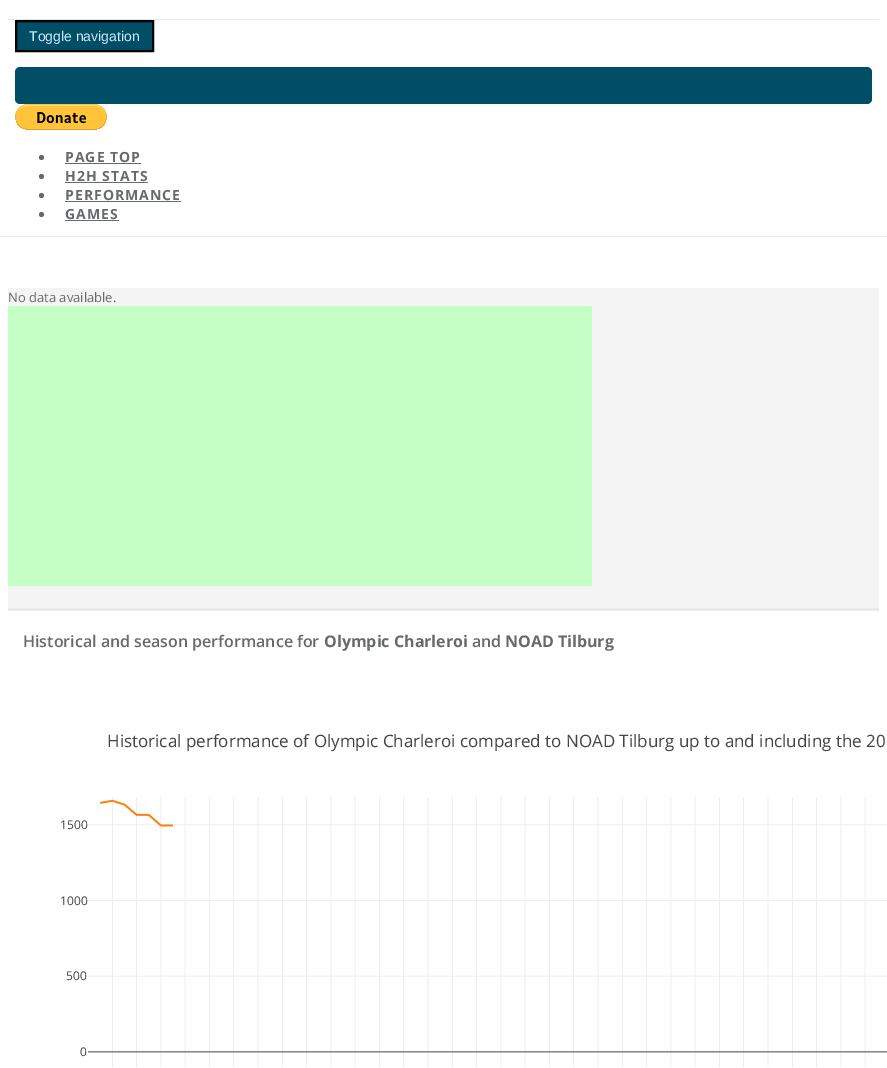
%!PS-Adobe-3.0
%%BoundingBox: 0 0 887 1068
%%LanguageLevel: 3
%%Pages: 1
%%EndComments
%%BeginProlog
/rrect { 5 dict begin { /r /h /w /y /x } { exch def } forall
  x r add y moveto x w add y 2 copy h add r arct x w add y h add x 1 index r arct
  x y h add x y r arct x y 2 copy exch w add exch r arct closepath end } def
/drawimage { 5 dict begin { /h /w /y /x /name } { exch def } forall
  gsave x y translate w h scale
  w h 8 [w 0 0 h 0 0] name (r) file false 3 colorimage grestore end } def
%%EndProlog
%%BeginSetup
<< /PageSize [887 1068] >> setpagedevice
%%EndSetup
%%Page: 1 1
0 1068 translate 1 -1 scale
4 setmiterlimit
1 setgray
0 0 887 1068 rectfill
0.906 0.918 0.925 setrgbcolor
0 236 887 1 rectfill
0 0.302 0.4 setrgbcolor
newpath 16 21 moveto 153 21 lineto 153 51 lineto 16 51 lineto closepath gsave fill grestore
0 setgray
2 setlinewidth
stroke
0 0.302 0.4 setrgbcolor
15 67 857 37 5 rrect fill
(images/1.raw) 15 104 92 26 drawimage
0.404 0.416 0.424 setrgbcolor
newpath 41.5 157.5 2.5 0 360 arc closepath fill
65 163 76 1 rectfill
newpath 41.5 176.5 2.5 0 360 arc closepath fill
65 182 83 1 rectfill
newpath 41.5 195.5 2.5 0 360 arc closepath fill
65 201 116 1 rectfill
newpath 41.5 214.5 2.5 0 360 arc closepath fill
65 220 54 1 rectfill
0.957 setgray
8 288 871 320 rectfill
0.906 0.918 0.925 setrgbcolor
8 19 871 1 rectfill
0.776 1 0.776 setrgbcolor
8 306 584 280 rectfill
0.906 0.918 0.925 setrgbcolor
8 608 871 3 rectfill
(images/2.raw) 88 797 799 270 drawimage
/LiberationSans-Regular [14 0 0 -14 0 0] selectfont
0.8 0.922 1 setrgbcolor
29 41 moveto (Toggle navigation) show
/OpenSans-Bold [14 0 0 -14 0 0] selectfont
0.404 0.416 0.424 setrgbcolor
65 162 moveto 1 0 (PAGE TOP) ashow
65 181 moveto 1 0 (H2H STATS) ashow
65 200 moveto 1 0 (PERFORMANCE) ashow
65 219 moveto 1 0 (GAMES) ashow
/OpenSans-Regular [13 0 0 -13 0 0] selectfont
8 302 moveto (No data available.) show
/OpenSans-SemiBold [16 0 0 -16 0 0] selectfont
23 647 moveto (Historical and season performance for) show
/OpenSans-Bold [16 0 0 -16 0 0] selectfont
324 647 moveto (Olympic Charleroi) show
/OpenSans-SemiBold [16 0 0 -16 0 0] selectfont
472 647 moveto (and) show
/OpenSans-Bold [16 0 0 -16 0 0] selectfont
505 647 moveto (NOAD Tilburg) show
/OpenSans-Regular [17 0 0 -17 0 0] selectfont
0.267 setgray
107 747 moveto (Historical performance of Olympic Charleroi compared to NOAD Tilburg up to and including the 20) show
/OpenSans-Regular [12 0 0 -12 0 0] selectfont
60 829 moveto (1500) show
60 905 moveto (1000) show
66 980 moveto (500) show
80 1056 moveto (0) show
showpage
%%EOF
